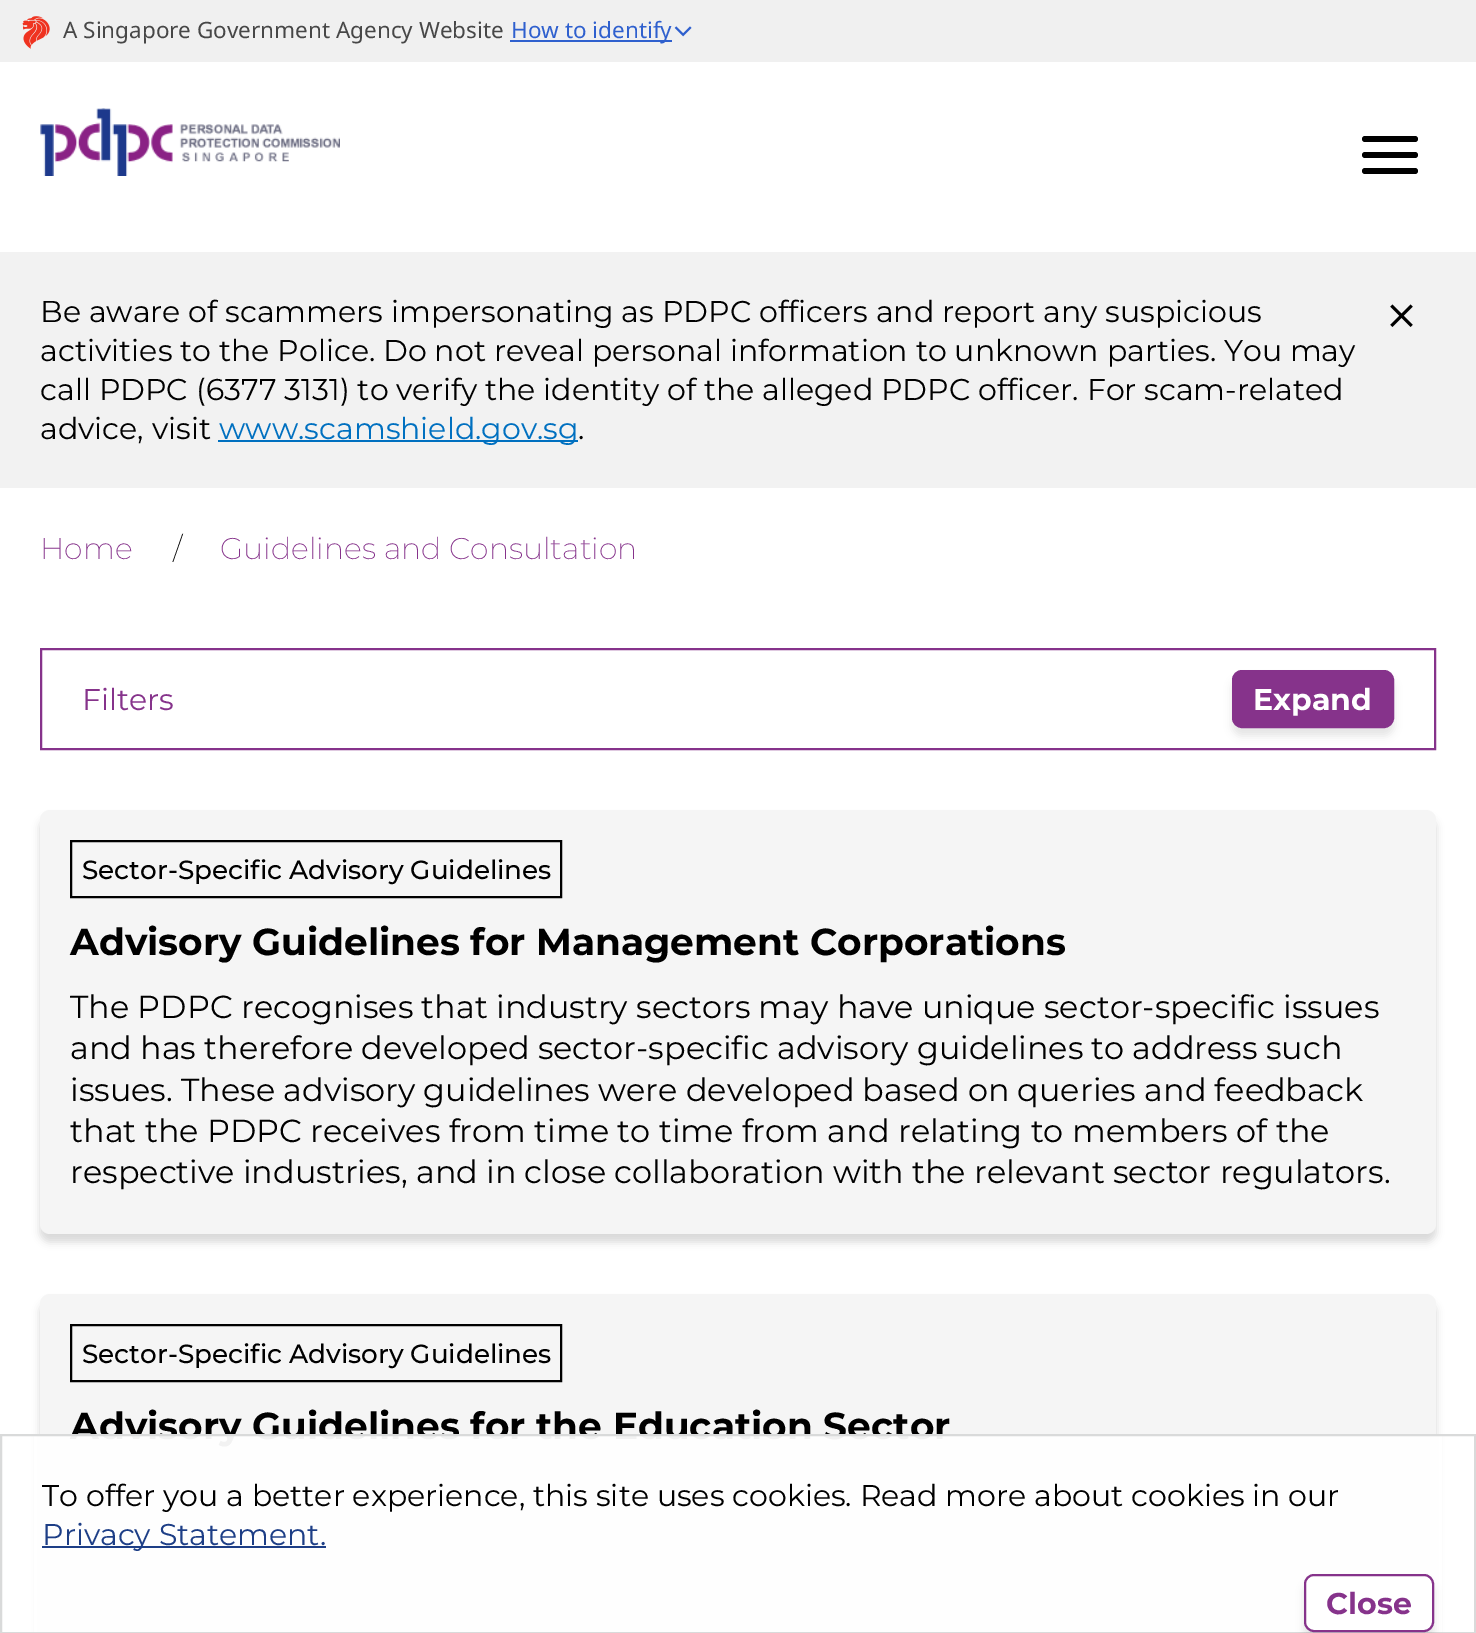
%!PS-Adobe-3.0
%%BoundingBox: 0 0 1476 1633
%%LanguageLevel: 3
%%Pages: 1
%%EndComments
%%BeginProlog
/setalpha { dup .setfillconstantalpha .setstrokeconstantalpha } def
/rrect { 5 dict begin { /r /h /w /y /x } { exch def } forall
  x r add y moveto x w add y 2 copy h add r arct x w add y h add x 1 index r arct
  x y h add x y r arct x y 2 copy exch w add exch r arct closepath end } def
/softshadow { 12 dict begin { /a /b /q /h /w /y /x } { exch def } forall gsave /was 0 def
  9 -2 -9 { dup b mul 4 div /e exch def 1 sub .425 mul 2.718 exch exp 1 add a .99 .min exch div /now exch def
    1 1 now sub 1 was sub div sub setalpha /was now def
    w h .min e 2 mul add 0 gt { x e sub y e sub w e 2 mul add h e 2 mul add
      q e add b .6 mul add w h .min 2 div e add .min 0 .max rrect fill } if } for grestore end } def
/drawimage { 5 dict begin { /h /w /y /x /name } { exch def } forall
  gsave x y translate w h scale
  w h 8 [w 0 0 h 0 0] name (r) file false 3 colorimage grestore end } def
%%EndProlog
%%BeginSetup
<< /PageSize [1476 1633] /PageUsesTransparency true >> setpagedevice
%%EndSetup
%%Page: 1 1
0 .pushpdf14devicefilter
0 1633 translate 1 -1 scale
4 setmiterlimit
1 setgray
0 0 1476 1633 rectfill
0.941 setgray
0 0 1476 62 rectfill
(images/1.raw) 22 16 28 33 drawimage
0.184 0.376 0.808 setrgbcolor
510 40 162 2 rectfill
(images/2.raw) 674 26 18 11 drawimage
(images/3.raw) 40 108 300 68 drawimage
0 setgray
1362 136 56 6 3 rrect fill
1362 152 56 6 3 rrect fill
1362 168 56 6 3 rrect fill
0.949 setgray
0 252 1476 236 rectfill
(images/4.raw) 1390 304 23 23 drawimage
0 0.439 0.753 setrgbcolor
218 440 360 2 rectfill
0.525 0.2 0.545 setrgbcolor
2 setlinewidth
41 649 1394 100 rectstroke
0 setgray
1232 678 162 58 10 4 0.1 softshadow
0.525 0.2 0.545 setrgbcolor
1233 671 160 56 9 rrect gsave fill grestore
stroke
0 setgray
40 818 1396 424 10 4 0.15 softshadow
0.961 setgray
40 810 1396 424 10 rrect fill
0 setgray
71 841 490 56 rectstroke
40 1302 1396 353 10 4 0.15 softshadow
0.961 setgray
40 1294 1396 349 10 rrect fill
0 setgray
71 1325 490 56 rectstroke
/NotoSans-Regular [22.5 0 0 -22.5 0 0] selectfont
0.278 setgray
63 38 moveto (A Singapore Government Agency Website) show
0.184 0.376 0.808 setrgbcolor
511 38 moveto (How to identify) show
/Montserrat-Regular [30 0 0 -30 0 0] selectfont
0 setgray
40 322 moveto (Be aware of scammers impersonating as PDPC officers and report any suspicious) show
40 361 moveto (activities to the Police. Do not reveal personal information to unknown parties. You may) show
40 400 moveto (call PDPC \(6377 3131\) to verify the identity of the alleged PDPC officer. For scam-related) show
40 439 moveto (advice, visit) show
0 0.439 0.753 setrgbcolor
219 439 moveto (www.scamshield.gov.sg) show
0 setgray
578 439 moveto (.) show
/Montserrat-ExtraLight [30 0 0 -30 0 0] selectfont
0.525 0.2 0.545 setrgbcolor
40 559 moveto (Home) show
0 setgray
173 559 moveto (/) show
0.525 0.2 0.545 setrgbcolor
220 559 moveto (Guidelines and Consultation) show
/Montserrat-Regular [30 0 0 -30 0 0] selectfont
82 710 moveto (Filters) show
/Montserrat-Bold [30 0 0 -30 0 0] selectfont
1 setgray
1253 710 moveto (Expand) show
/Montserrat-Medium [26.25 0 0 -26.25 0 0] selectfont
0 setgray
82 879 moveto (Sector-Specific Advisory Guidelines) show
/Montserrat-Bold [37.5 0 0 -37.5 0 0] selectfont
70 955 moveto (Advisory Guidelines for Management Corporations) show
/Montserrat-Regular [31.9 0 0 -31.9 0 0] selectfont
70 1018 moveto -0.1 0 32 (The PDPC recognises that industry sectors may have unique sector-specific issues) widthshow
70 1059 moveto -0.25 0 32 (and has therefore developed sector-specific advisory guidelines to address such) widthshow
70 1101 moveto -0.1 0 32 (issues. These advisory guidelines were developed based on queries and feedback) widthshow
70 1142 moveto (that the PDPC receives from time to time from and relating to members of the) show
70 1183 moveto -0.1 0 32 (respective industries, and in close collaboration with the relevant sector regulators.) widthshow
/Montserrat-Medium [26.25 0 0 -26.25 0 0] selectfont
82 1363 moveto (Sector-Specific Advisory Guidelines) show
/Montserrat-Bold [37.5 0 0 -37.5 0 0] selectfont
70 1439 moveto (Advisory Guidelines for the Education Sector) show
0.95 setalpha
1 setgray
34 1436 1408 196 rectfill
1 setalpha
0.851 0.855 0.855 setrgbcolor
1 1435 1474 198 rectstroke
/Montserrat-Regular [30 0 0 -30 0 0] selectfont
0 setgray
42 1506 moveto (To offer you a better experience, this site uses cookies. Read more about cookies in our) show
0.114 0.243 0.525 setrgbcolor
42 1546 284 2 rectfill
42 1545 moveto (Privacy Statement.) show
0 setgray
1304 1582 130 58 10 4 0.1 softshadow
1 setgray
1305 1575 128 56 9 rrect gsave fill grestore
0.525 0.2 0.545 setrgbcolor
stroke
/Montserrat-Bold [30 0 0 -30 0 0] selectfont
1326 1614 moveto (Close) show
.poppdf14devicefilter showpage
%%EOF
